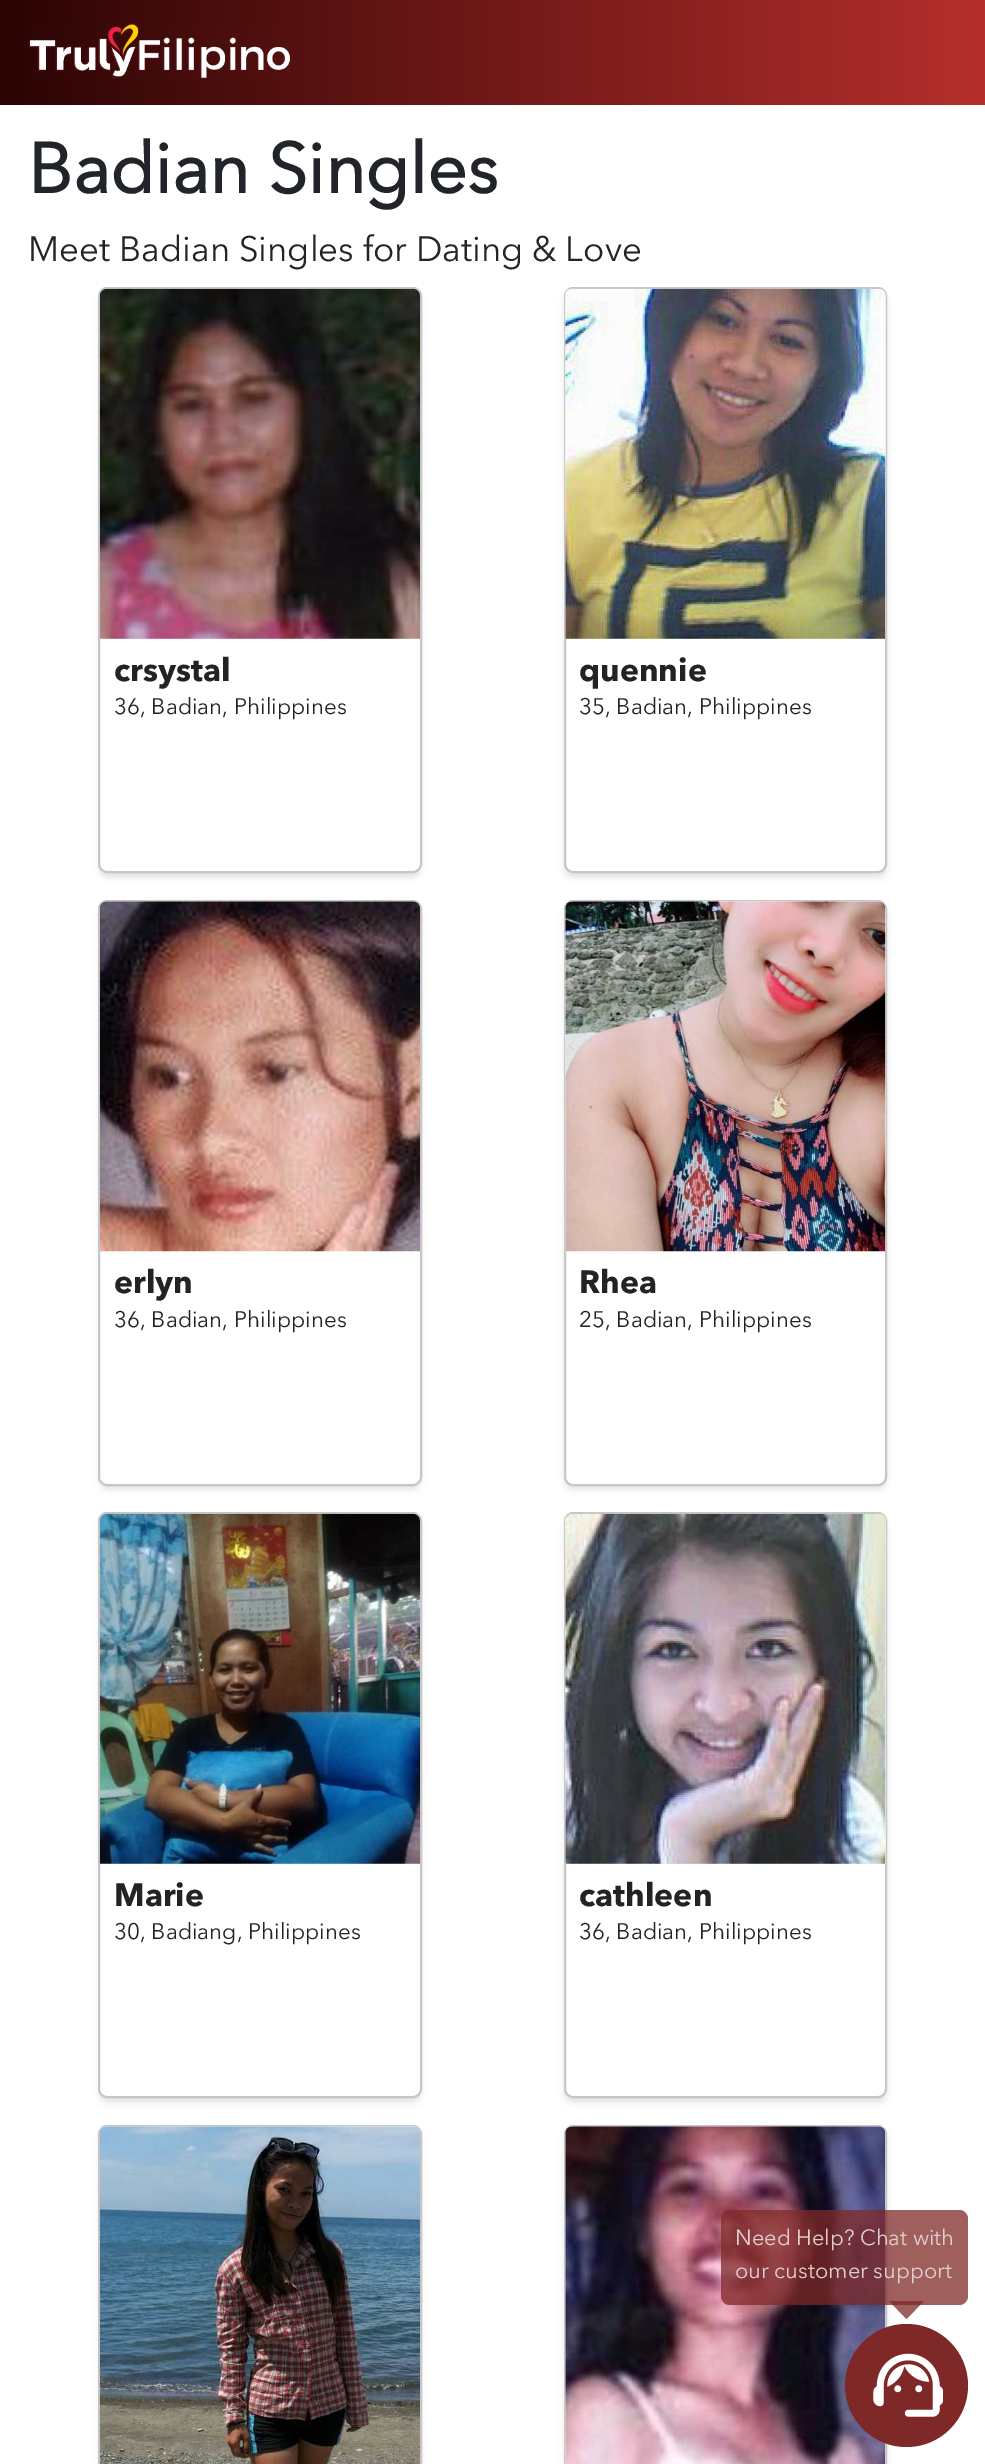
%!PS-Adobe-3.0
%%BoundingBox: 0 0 985 2464
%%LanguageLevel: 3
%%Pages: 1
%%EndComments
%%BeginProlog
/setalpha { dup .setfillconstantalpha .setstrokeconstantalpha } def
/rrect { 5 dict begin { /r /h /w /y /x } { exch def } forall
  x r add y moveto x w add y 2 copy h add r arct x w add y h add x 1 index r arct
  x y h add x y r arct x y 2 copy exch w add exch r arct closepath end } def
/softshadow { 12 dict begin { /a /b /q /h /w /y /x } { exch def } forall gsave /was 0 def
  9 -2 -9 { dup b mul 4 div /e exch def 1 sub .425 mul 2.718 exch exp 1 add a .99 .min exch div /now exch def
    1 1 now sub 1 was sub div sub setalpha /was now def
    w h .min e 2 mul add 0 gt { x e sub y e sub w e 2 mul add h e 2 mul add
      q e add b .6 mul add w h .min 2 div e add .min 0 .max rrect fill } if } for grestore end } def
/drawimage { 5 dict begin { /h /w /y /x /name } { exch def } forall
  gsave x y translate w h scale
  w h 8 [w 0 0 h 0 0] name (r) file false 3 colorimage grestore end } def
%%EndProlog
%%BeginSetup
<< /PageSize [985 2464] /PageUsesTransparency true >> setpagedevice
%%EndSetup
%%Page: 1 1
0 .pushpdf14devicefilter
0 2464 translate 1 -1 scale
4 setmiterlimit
1 setgray
0 0 985 2464 rectfill
gsave newpath 0 0 moveto 985 0 lineto 985 105 lineto 0 105 lineto closepath clip newpath
<< /ShadingType 2 /ColorSpace /DeviceRGB /Coords [0 53 985 52] /Extend [true true] /Function << /FunctionType 2 /Domain [0 1] /C0 [0.169 0.016 0.016] /C1 [0.71 0.184 0.173] /N 1 >> >> shfill grestore
(images/1.raw) 28 24 262 55 drawimage
gsave
newpath 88 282 moveto 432 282 lineto 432 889 lineto 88 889 lineto closepath 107 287 moveto 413 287 lineto 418 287 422 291 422 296 curveto 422 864 lineto 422 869 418 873 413 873 curveto 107 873 lineto 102 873 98 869 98 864 curveto 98 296 lineto 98 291 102 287 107 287 curveto closepath eoclip newpath
0.353 setgray
100 294 320 583 7 3.5 0.17 softshadow
grestore
0.776 setgray
2 setlinewidth
99 288 322 584 8 rrect stroke
(images/2.raw) 99 288 321 351 drawimage
gsave
newpath 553 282 moveto 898 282 lineto 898 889 lineto 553 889 lineto closepath 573 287 moveto 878 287 lineto 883 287 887 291 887 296 curveto 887 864 lineto 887 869 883 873 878 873 curveto 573 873 lineto 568 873 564 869 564 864 curveto 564 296 lineto 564 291 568 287 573 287 curveto closepath eoclip newpath
0.353 setgray
565 294 321 583 7 3.5 0.17 softshadow
grestore
565 288 321 584 8 rrect stroke
0.933 setgray
newpath 572 289 moveto 879 289 lineto 883 289 886 292 886 296 curveto 886 639 lineto 565 639 lineto 565 296 lineto 565 292 568 289 572 289 curveto closepath fill
(images/3.raw) 565 288 321 351 drawimage
gsave
newpath 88 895 moveto 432 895 lineto 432 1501 lineto 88 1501 lineto closepath 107 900 moveto 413 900 lineto 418 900 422 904 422 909 curveto 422 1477 lineto 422 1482 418 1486 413 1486 curveto 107 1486 lineto 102 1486 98 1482 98 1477 curveto 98 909 lineto 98 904 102 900 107 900 curveto closepath eoclip newpath
0.353 setgray
100 907 320 582 7 3.5 0.17 softshadow
grestore
0.776 setgray
99 901 322 584 8 rrect stroke
0.933 setgray
newpath 107 901 moveto 413 901 lineto 417 901 420 904 420 908 curveto 420 1251 lineto 100 1251 lineto 100 908 lineto 100 904 103 901 107 901 curveto closepath fill
(images/4.raw) 99 901 321 351 drawimage
gsave
newpath 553 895 moveto 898 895 lineto 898 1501 lineto 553 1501 lineto closepath 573 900 moveto 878 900 lineto 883 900 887 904 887 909 curveto 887 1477 lineto 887 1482 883 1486 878 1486 curveto 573 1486 lineto 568 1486 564 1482 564 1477 curveto 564 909 lineto 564 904 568 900 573 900 curveto closepath eoclip newpath
0.353 setgray
565 907 321 582 7 3.5 0.17 softshadow
grestore
0.776 setgray
565 901 321 584 8 rrect stroke
0.933 setgray
newpath 572 901 moveto 879 901 lineto 883 901 886 904 886 908 curveto 886 1251 lineto 565 1251 lineto 565 908 lineto 565 904 568 901 572 901 curveto closepath fill
(images/5.raw) 565 901 321 351 drawimage
gsave
newpath 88 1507 moveto 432 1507 lineto 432 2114 lineto 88 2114 lineto closepath 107 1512 moveto 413 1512 lineto 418 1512 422 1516 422 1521 curveto 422 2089 lineto 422 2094 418 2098 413 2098 curveto 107 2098 lineto 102 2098 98 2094 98 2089 curveto 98 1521 lineto 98 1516 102 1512 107 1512 curveto closepath eoclip newpath
0.353 setgray
100 1519 320 583 7 3.5 0.17 softshadow
grestore
0.776 setgray
99 1513 322 584 8 rrect stroke
(images/6.raw) 99 1513 321 351 drawimage
gsave
newpath 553 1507 moveto 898 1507 lineto 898 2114 lineto 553 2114 lineto closepath 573 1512 moveto 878 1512 lineto 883 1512 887 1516 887 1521 curveto 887 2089 lineto 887 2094 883 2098 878 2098 curveto 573 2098 lineto 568 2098 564 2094 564 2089 curveto 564 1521 lineto 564 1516 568 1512 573 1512 curveto closepath eoclip newpath
0.353 setgray
565 1519 321 583 7 3.5 0.17 softshadow
grestore
565 1513 321 584 8 rrect stroke
0.933 setgray
newpath 572 1514 moveto 879 1514 lineto 883 1514 886 1517 886 1521 curveto 886 1864 lineto 565 1864 lineto 565 1521 lineto 565 1517 568 1514 572 1514 curveto closepath fill
(images/7.raw) 565 1513 321 351 drawimage
0.353 setgray
100 2132 320 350 7 3.5 0.17 softshadow
0.776 setgray
99 2126 322 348 8 rrect stroke
0.933 setgray
newpath 107 2126 moveto 413 2126 lineto 417 2126 420 2129 420 2133 curveto 420 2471 lineto 100 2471 lineto 100 2133 lineto 100 2129 103 2126 107 2126 curveto closepath fill
(images/8.raw) 99 2126 321 338 drawimage
0.353 setgray
565 2132 321 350 7 3.5 0.17 softshadow
0.776 setgray
565 2126 321 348 8 rrect stroke
0.933 setgray
newpath 572 2126 moveto 879 2126 lineto 883 2126 886 2129 886 2133 curveto 886 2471 lineto 565 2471 lineto 565 2133 lineto 565 2129 568 2126 572 2126 curveto closepath fill
(images/9.raw) 565 2126 321 338 drawimage
0.75 setalpha
0.494 0.161 0.153 setrgbcolor
721 2210 247 95 9 rrect fill
newpath 889 2301 moveto 924 2301 lineto 906.5 2319 lineto closepath fill
1 setalpha
newpath 906.5 2385.5 61.5 0 360 arc closepath fill
(images/10.raw) 873 2353 70 64 drawimage
/AvenirNext-Bold [70 0 0 -70 0 0] selectfont
0.129 0.145 0.161 setrgbcolor
28 193 moveto (Badian Singles) show
/AvenirNext-Regular [35 0 0 -35 0 0] selectfont
28 261 moveto (Meet Badian Singles for Dating & Love) show
/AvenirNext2-Bold [32 0 0 -32 0 0] selectfont
0.137 setgray
114 681 moveto (crsystal) show
/AvenirNext-Regular [22.4 0 0 -22.4 0 0] selectfont
114 714 moveto (36, Badian, Philippines) show
/AvenirNext2-Bold [32 0 0 -32 0 0] selectfont
579 681 moveto (quennie) show
/AvenirNext-Regular [22.4 0 0 -22.4 0 0] selectfont
579 714 moveto (35, Badian, Philippines) show
/AvenirNext2-Bold [32 0 0 -32 0 0] selectfont
114 1293 moveto (erlyn) show
/AvenirNext-Regular [22.4 0 0 -22.4 0 0] selectfont
114 1327 moveto (36, Badian, Philippines) show
/AvenirNext2-Bold [32 0 0 -32 0 0] selectfont
579 1293 moveto (Rhea) show
/AvenirNext-Regular [22.4 0 0 -22.4 0 0] selectfont
579 1327 moveto (25, Badian, Philippines) show
/AvenirNext2-Bold [32 0 0 -32 0 0] selectfont
114 1906 moveto (Marie) show
/AvenirNext-Regular [22.4 0 0 -22.4 0 0] selectfont
114 1939 moveto (30, Badiang, Philippines) show
/AvenirNext2-Bold [32 0 0 -32 0 0] selectfont
579 1906 moveto (cathleen) show
/AvenirNext-Regular [22.4 0 0 -22.4 0 0] selectfont
579 1939 moveto (36, Badian, Philippines) show
/AvenirNext-Regular [21.9 0 0 -21.9 0 0] selectfont
0.882 0.812 0.816 setrgbcolor
735 2245 moveto (Need Help? Chat with) show
735 2278 moveto (our customer support) show
.poppdf14devicefilter showpage
%%EOF
